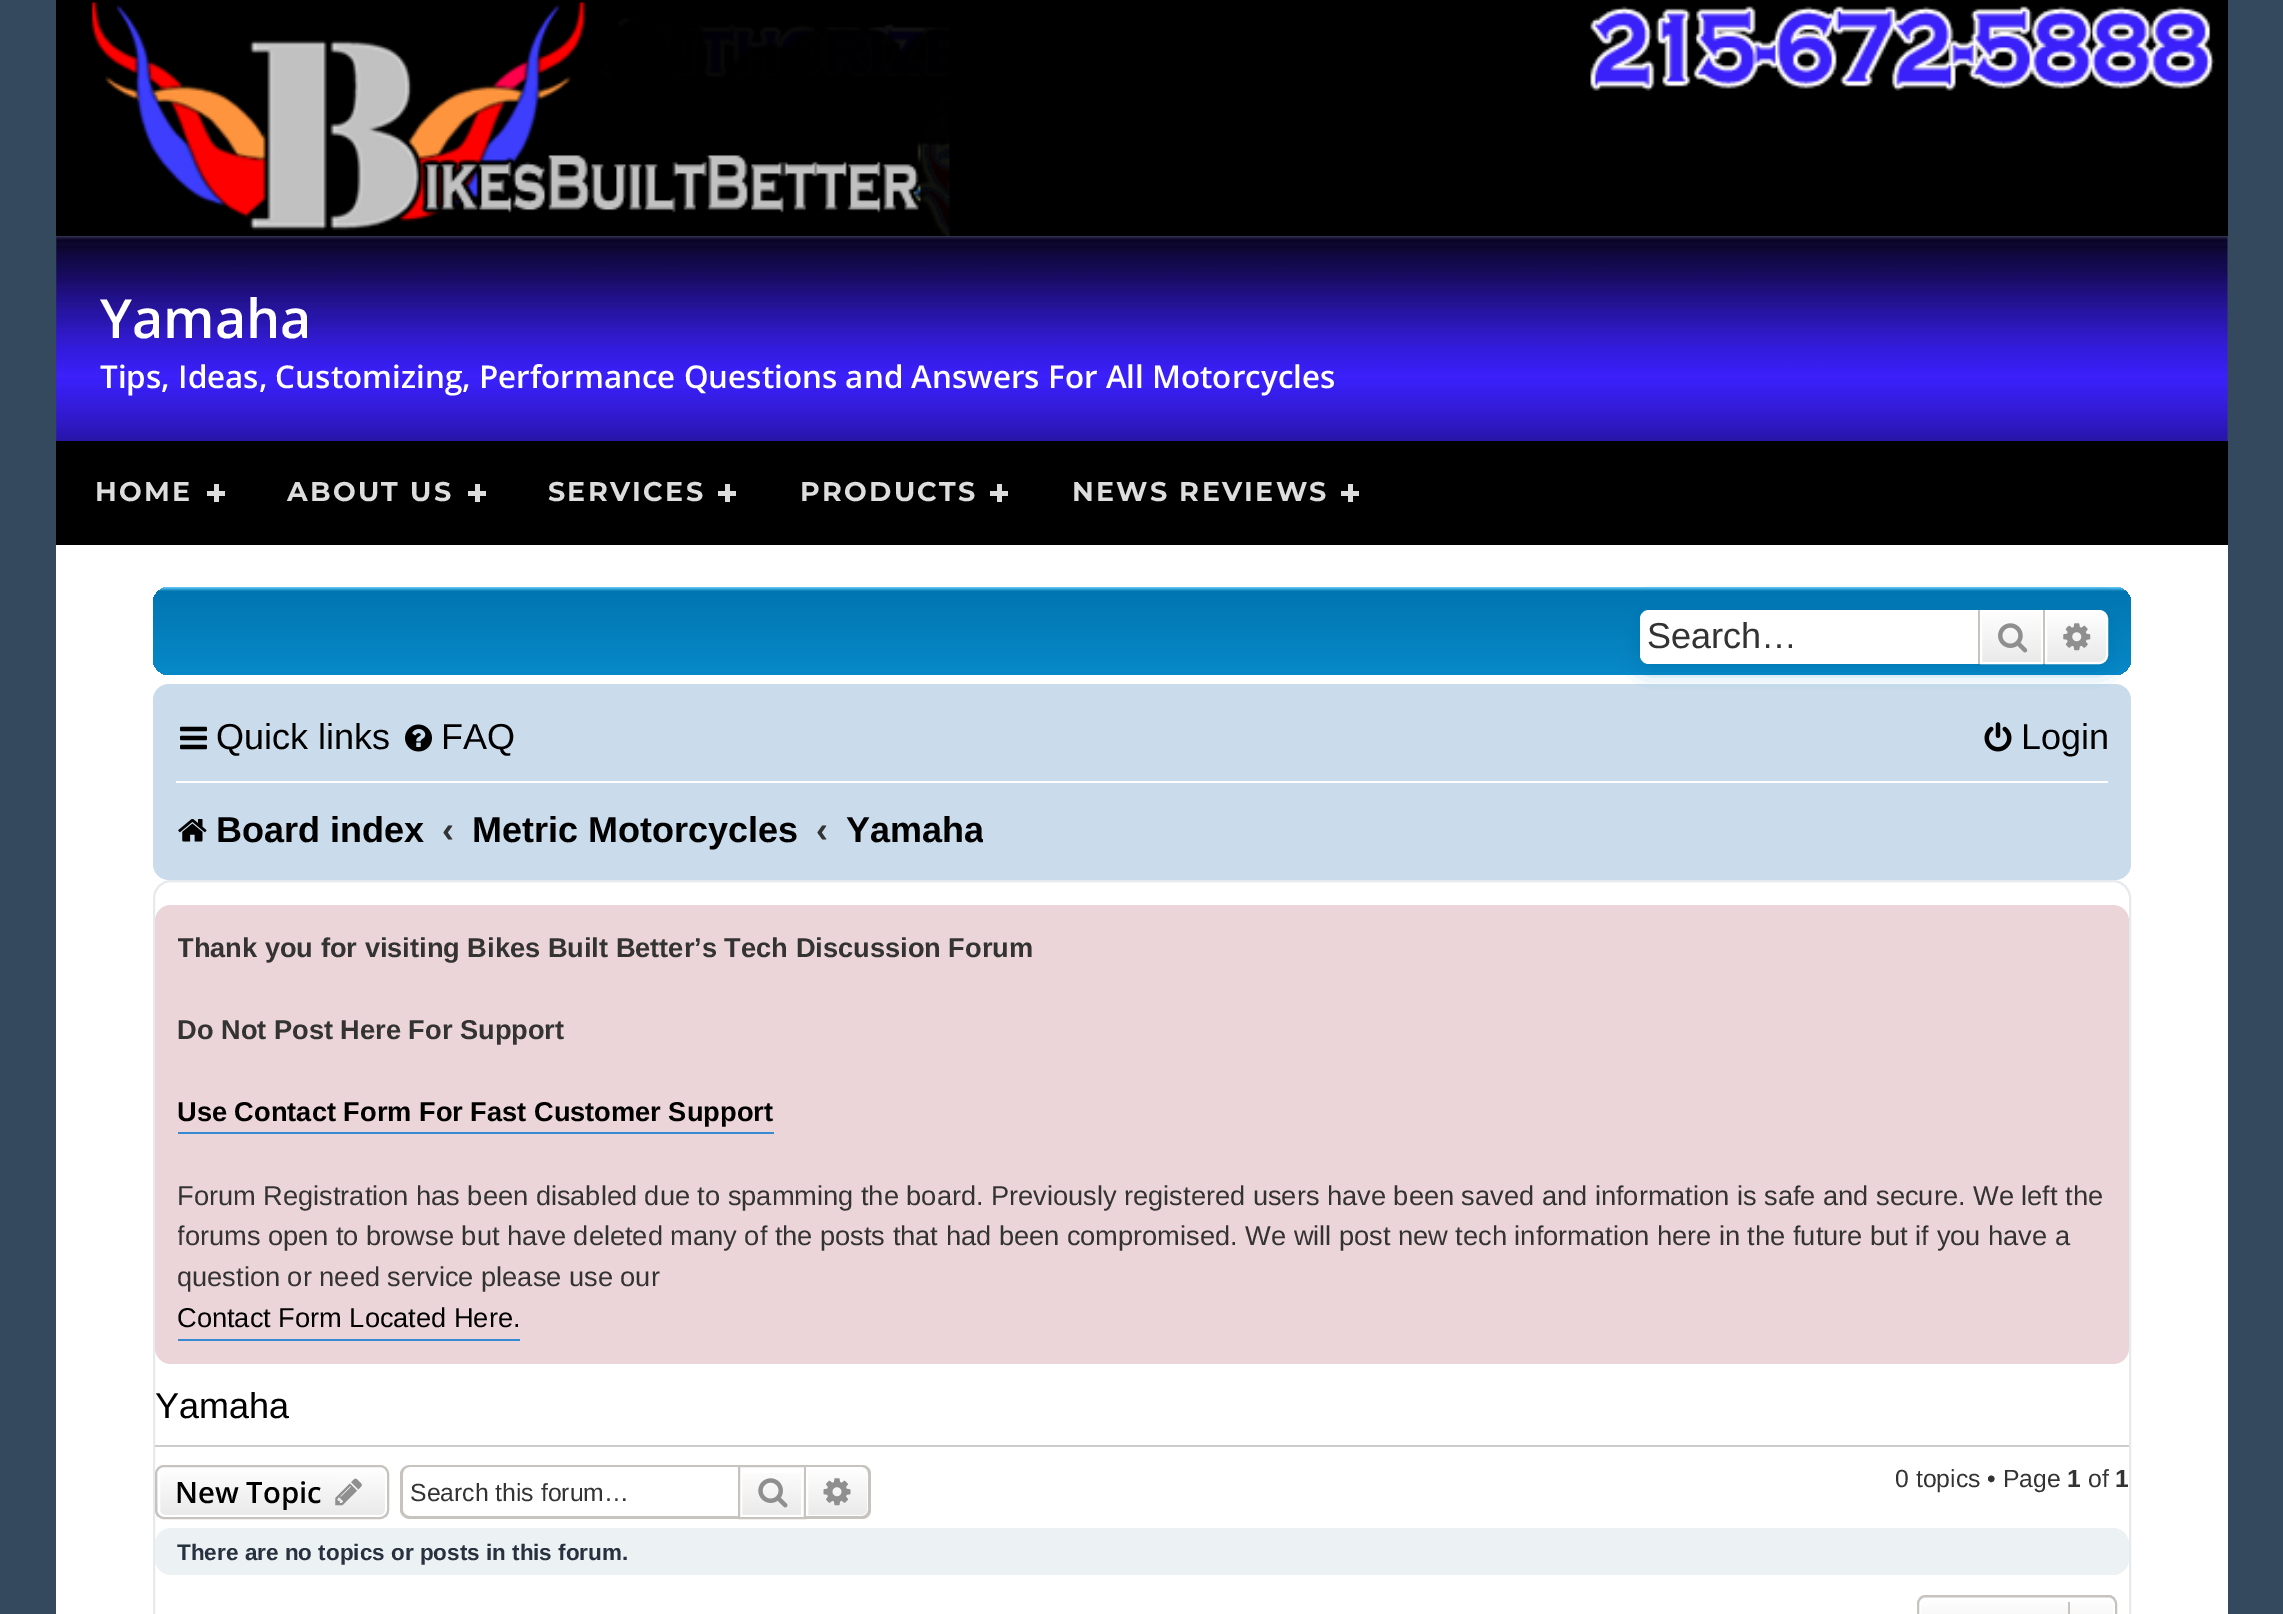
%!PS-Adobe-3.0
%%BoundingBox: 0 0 2283 1614
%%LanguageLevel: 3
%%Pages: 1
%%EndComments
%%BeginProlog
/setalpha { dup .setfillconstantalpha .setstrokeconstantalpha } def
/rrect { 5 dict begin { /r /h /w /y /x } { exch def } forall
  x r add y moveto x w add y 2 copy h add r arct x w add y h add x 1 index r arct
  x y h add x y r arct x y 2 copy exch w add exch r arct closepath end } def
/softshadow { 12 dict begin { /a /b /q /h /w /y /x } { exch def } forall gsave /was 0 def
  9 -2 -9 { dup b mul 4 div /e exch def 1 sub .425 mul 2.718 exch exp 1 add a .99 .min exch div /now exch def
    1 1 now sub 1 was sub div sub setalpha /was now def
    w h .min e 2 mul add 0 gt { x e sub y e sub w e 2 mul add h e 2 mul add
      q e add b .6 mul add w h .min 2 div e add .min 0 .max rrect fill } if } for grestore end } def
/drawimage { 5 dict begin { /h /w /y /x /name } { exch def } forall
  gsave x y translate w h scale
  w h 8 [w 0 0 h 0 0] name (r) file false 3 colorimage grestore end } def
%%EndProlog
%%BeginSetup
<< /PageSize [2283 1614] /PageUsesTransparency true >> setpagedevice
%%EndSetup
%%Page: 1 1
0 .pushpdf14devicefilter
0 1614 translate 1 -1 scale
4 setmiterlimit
0.204 0.286 0.369 setrgbcolor
0 0 2283 1614 rectfill
0 setgray
56 0 2172 236 rectfill
(images/3.raw) 56 236 2172 205 drawimage
(images/1.raw) 91 2 859 235 drawimage
(images/2.raw) 1590 6 625 85 drawimage
56 441 2172 104 rectfill
0.867 setgray
214 484 5 18 rectfill
207 491 18 5 rectfill
475 484 5 18 rectfill
468 491 18 5 rectfill
725 484 5 18 rectfill
718 491 18 5 rectfill
997 484 5 18 rectfill
990 491 18 5 rectfill
1348 484 5 18 rectfill
1341 491 18 5 rectfill
1 setgray
56 545 2172 1069 rectfill
gsave 153 587 1978 88 16 rrect clip newpath
<< /ShadingType 2 /ColorSpace /DeviceRGB /Coords [1142 587 1142 794] /Extend [true true] /Function << /FunctionType 3 /Domain [0 1] /Functions [<< /FunctionType 2 /Domain [0 1] /C0 [0.416 0.808 1] /C1 [0 0.463 0.694] /N 1 >> << /FunctionType 2 /Domain [0 1] /C0 [0 0.463 0.694] /C1 [0.071 0.639 0.922] /N 1 >>] /Bounds [0.02] /Encode [0 1 0 1] >> >> shfill grestore
0.792 0.863 0.922 setrgbcolor
153 684 1978 196 16 rrect fill
0 0.459 0.69 setrgbcolor
1640 610 468 54 9 11 1 softshadow
1 setgray
newpath 1649 610 moveto 1978 610 lineto 1978 664 lineto 1649 664 lineto 1644 664 1640 660 1640 655 curveto 1640 619 lineto 1640 614 1644 610 1649 610 curveto closepath fill
gsave newpath 1982 612 moveto 2041 612 lineto 2041 662 lineto 1982 662 lineto closepath clip newpath
<< /ShadingType 2 /ColorSpace /DeviceRGB /Coords [2012 610 2012 664] /Extend [true true] /Function << /FunctionType 2 /Domain [0 1] /C0 [1 1 1] /C1 [0.914 0.914 0.914] /N 1 >> >> shfill grestore
2 setlinewidth
1981 611 61 52 rectstroke
0.78 0.765 0.749 setrgbcolor
2043 610 2 54 rectfill
1978 610 2 54 rectfill
(images/4.raw) 1998 623 30 30 drawimage
gsave newpath 2046 611 moveto 2099 611 lineto 2103.5 611 2107 614.5 2107 619 curveto 2107 655 lineto 2107 659.5 2103.5 663 2099 663 curveto 2046 663 lineto closepath clip newpath
<< /ShadingType 2 /ColorSpace /DeviceRGB /Coords [2077 610 2077 664] /Extend [true true] /Function << /FunctionType 2 /Domain [0 1] /C0 [1 1 1] /C1 [0.914 0.914 0.914] /N 1 >> >> shfill grestore
1 setgray
newpath 2046 611 moveto 2099 611 lineto 2103.5 611 2107 614.5 2107 619 curveto 2107 655 lineto 2107 659.5 2103.5 663 2099 663 curveto 2046 663 lineto closepath stroke
(images/5.raw) 2063 623 28 28 drawimage
(images/6.raw) 180 726 27 24 drawimage
(images/7.raw) 405 724 27 28 drawimage
(images/8.raw) 1984 722 28 30 drawimage
176 781 1932 2 rectfill
(images/9.raw) 178 819 29 23 drawimage
0.902 0.914 0.929 setrgbcolor
154 881 1976 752 17 rrect stroke
0.925 0.835 0.847 setrgbcolor
155 905 1974 459 16 rrect fill
0.212 0.541 0.824 setrgbcolor
178 1132 596 2 rectfill
178 1339 342 2 rectfill
0.8 setgray
155 1445 1974 2 rectfill
gsave
155 1465 234 54 9 rrect clip newpath
gsave newpath 155 1467 moveto 389 1467 lineto 389 1517 lineto 155 1517 lineto closepath clip newpath
<< /ShadingType 2 /ColorSpace /DeviceRGB /Coords [272 1467 272 1517] /Extend [true true] /Function << /FunctionType 2 /Domain [0 1] /C0 [1 1 1] /C1 [0.914 0.914 0.914] /N 1 >> >> shfill grestore
grestore
1 setgray
159 1468 227 48 6 rrect stroke
0.78 0.765 0.749 setrgbcolor
156 1466 232 52 8 rrect stroke
(images/10.raw) 335 1478 27 28 drawimage
newpath 410 1465 moveto 738 1465 lineto 738 1519 lineto 410 1519 lineto 405 1519 400 1515 400 1510 curveto 400 1474 lineto 400 1469 405 1465 410 1465 curveto closepath 410 1467 moveto 738 1467 lineto 738 1516 lineto 410 1516 lineto 406 1516 403 1513 403 1510 curveto 403 1474 lineto 403 1470 406 1467 410 1467 curveto closepath eofill
gsave newpath 742 1473 moveto 804 1473 lineto 804 1517 lineto 742 1517 lineto closepath clip newpath
<< /ShadingType 2 /ColorSpace /DeviceRGB /Coords [772 1467 772 1517] /Extend [true true] /Function << /FunctionType 2 /Domain [0 1] /C0 [1 1 1] /C1 [0.914 0.914 0.914] /N 1 >> >> shfill grestore
1 setgray
741 1468 61 48 rectstroke
0.78 0.765 0.749 setrgbcolor
739 1466 66 52 rectstroke
(images/11.raw) 758 1478 30 30 drawimage
gsave newpath 807 1468 moveto 862 1468 lineto 865.5 1468 868 1470.5 868 1474 curveto 868 1510 lineto 868 1513.5 865.5 1516 862 1516 curveto 807 1516 lineto closepath clip newpath
<< /ShadingType 2 /ColorSpace /DeviceRGB /Coords [837 1467 837 1517] /Extend [true true] /Function << /FunctionType 2 /Domain [0 1] /C0 [1 1 1] /C1 [0.914 0.914 0.914] /N 1 >> >> shfill grestore
1 setgray
newpath 807 1468 moveto 862 1468 lineto 865.5 1468 868 1470.5 868 1474 curveto 868 1510 lineto 868 1513.5 865.5 1516 862 1516 curveto 807 1516 lineto closepath stroke
0.78 0.765 0.749 setrgbcolor
newpath 806 1465 moveto 862 1465 lineto 867 1465 871 1469 871 1474 curveto 871 1510 lineto 871 1515 867 1519 862 1519 curveto 806 1519 lineto closepath 806 1467 moveto 862 1467 lineto 865 1467 868 1470 868 1474 curveto 868 1510 lineto 868 1513 865 1516 862 1516 curveto 806 1516 lineto closepath eofill
(images/12.raw) 823 1478 28 28 drawimage
0.925 0.945 0.953 setrgbcolor
155 1528 1974 47 16 rrect fill
gsave
1917 1595 200 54 9 rrect clip newpath
gsave newpath 1917 1595 moveto 2117 1595 lineto 2117 1598 lineto 1917 1598 lineto closepath clip newpath
<< /ShadingType 2 /ColorSpace /DeviceRGB /Coords [2017 1548 2017 1598] /Extend [true true] /Function << /FunctionType 2 /Domain [0 1] /C0 [1 1 1] /C1 [0.914 0.914 0.914] /N 1 >> >> shfill grestore
gsave newpath 1917 1598 moveto 2117 1598 lineto 2117 1614 lineto 1917 1614 lineto closepath clip newpath
<< /ShadingType 2 /ColorSpace /DeviceRGB /Coords [2017 1598 2017 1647] /Extend [true true] /Function << /FunctionType 2 /Domain [0 1] /C0 [1 1 1] /C1 [0.914 0.914 0.914] /N 1 >> >> shfill grestore
grestore
1 setgray
1920 1599 194 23 6 rrect stroke
0.78 0.765 0.749 setrgbcolor
1918 1596 198 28 8 rrect stroke
2068 1602 2 12 rectfill
/OpenSans-SemiBold [54 0 0 -54 0 0] selectfont
1 setgray
100 338 moveto (Yamaha) show
/OpenSans-SemiBold [31.4 0 0 -31.4 0 0] selectfont
100 388 moveto (Tips, Ideas, Customizing, Performance Questions and Answers For All Motorcycles) show
/Montserrat-Bold [27 0 0 -27 0 0] selectfont
0.867 setgray
95 501 moveto 2.25 0 (HOME) ashow
287 501 moveto 2.25 0 (ABOUT US) ashow
548 501 moveto 2.25 0 (SERVICES) ashow
800 501 moveto 2.25 0 (PRODUCTS) ashow
1072 501 moveto 2.25 0 (NEWS REVIEWS) ashow
/LiberationSans-Regular [36 0 0 -36 0 0] selectfont
0.2 setgray
1647 648 moveto (Search…) show
0 setgray
216 749 moveto (Quick links) show
441 749 moveto (FAQ) show
2021 749 moveto (Login) show
/LiberationSans-Bold [36 0 0 -36 0 0] selectfont
216 842 moveto (Board index) show
0.2 setgray
442 842 moveto (‹) show
0 setgray
472 842 moveto (Metric Motorcycles) show
0.2 setgray
816 842 moveto (‹) show
gsave
846 790 137 79 rectclip
0 setgray
846 842 moveto (Yamaha) show
grestore
gsave
178 927 1928 414 rectclip
/LiberationSans-Bold [27.22 0 0 -27.22 0 0] selectfont
177 957 moveto (Thank you for visiting Bikes Built Better’s Tech Discussion Forum) show
grestore
/LiberationSans-Bold [27.22 0 0 -27.22 0 0] selectfont
177 1039 moveto (Do Not Post Here For Support) show
0 setgray
177 1121 moveto (Use Contact Form For Fast Customer Support) show
/LiberationSans-Regular [27.22 0 0 -27.22 0 0] selectfont
0.2 setgray
177 1205 moveto (Forum Registration has been disabled due to spamming the board. Previously registered users have been saved and information is safe and secure. We left the) show
gsave
178 927 1928 414 rectclip
177 1245 moveto (forums open to browse but have deleted many of the posts that had been compromised. We will post new tech information here in the future but if you have a) show
grestore
177 1286 moveto (question or need service please use our) show
0 setgray
177 1327 moveto (Contact Form Located Here.) show
/LiberationSans-Regular [36 0 0 -36 0 0] selectfont
155 1418 moveto (Yamaha) show
/OpenSans-SemiBold [29.25 0 0 -29.25 0 0] selectfont
175 1503 moveto (New Topic) show
/LiberationSans-Regular [24.75 0 0 -24.75 0 0] selectfont
0.2 setgray
410 1501 moveto (Search this forum…) show
1895 1487 moveto (0 topics • Page) show
/LiberationSans-Bold [24.75 0 0 -24.75 0 0] selectfont
2067 1487 moveto (1) show
/LiberationSans-Regular [24.75 0 0 -24.75 0 0] selectfont
2088 1487 moveto (of) show
/LiberationSans-Bold [24.75 0 0 -24.75 0 0] selectfont
2115 1487 moveto (1) show
/LiberationSans-Bold [22.5 0 0 -22.5 0 0] selectfont
0.157 0.192 0.247 setrgbcolor
177 1560 moveto (There are no topics or posts in this forum.) show
.poppdf14devicefilter showpage
%%EOF
